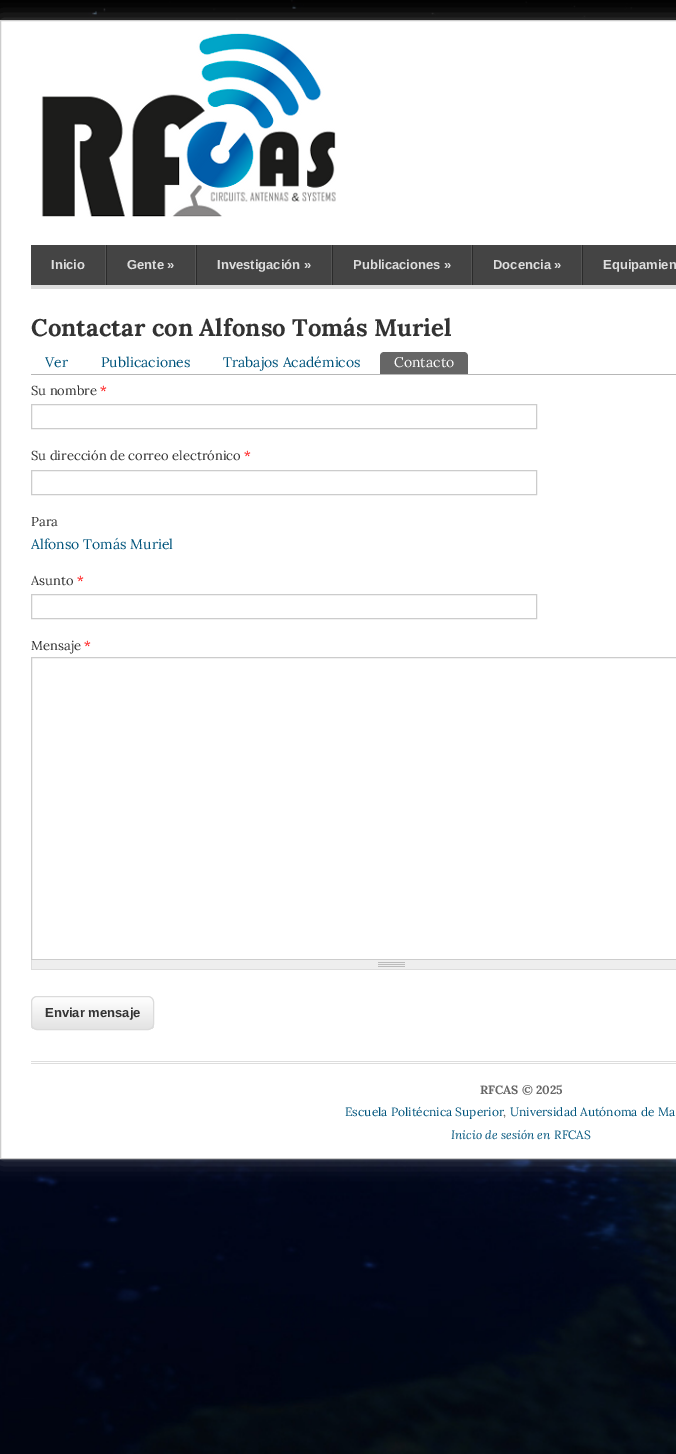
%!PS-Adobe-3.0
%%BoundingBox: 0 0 676 1454
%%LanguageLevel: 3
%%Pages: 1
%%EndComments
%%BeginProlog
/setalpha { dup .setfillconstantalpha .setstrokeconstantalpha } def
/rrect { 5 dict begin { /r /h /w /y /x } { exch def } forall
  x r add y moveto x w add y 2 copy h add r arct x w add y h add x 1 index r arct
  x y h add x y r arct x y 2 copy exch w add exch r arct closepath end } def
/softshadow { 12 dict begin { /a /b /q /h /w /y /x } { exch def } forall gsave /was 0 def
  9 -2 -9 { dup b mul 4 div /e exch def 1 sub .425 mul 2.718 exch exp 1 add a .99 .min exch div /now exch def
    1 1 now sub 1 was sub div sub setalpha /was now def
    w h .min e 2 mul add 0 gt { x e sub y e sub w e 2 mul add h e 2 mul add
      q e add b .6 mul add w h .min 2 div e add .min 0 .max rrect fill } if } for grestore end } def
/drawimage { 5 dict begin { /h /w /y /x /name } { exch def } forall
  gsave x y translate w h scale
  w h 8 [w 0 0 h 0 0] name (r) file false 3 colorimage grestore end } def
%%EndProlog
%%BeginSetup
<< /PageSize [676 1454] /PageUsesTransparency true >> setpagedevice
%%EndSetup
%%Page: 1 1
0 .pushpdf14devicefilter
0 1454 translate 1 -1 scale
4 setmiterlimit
1 setgray
0 0 676 1454 rectfill
(images/1.raw) 0 0 676 1454 drawimage
0.753 setgray
0 20 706 1139 0 10 0.4 softshadow
1 setgray
newpath 0.5 20.5 moveto 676.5 20.5 lineto 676.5 1158.5 lineto 0.5 1158.5 lineto closepath gsave fill grestore
0.8 setgray
stroke
(images/2.raw) 41 33 295 184 drawimage
0.267 setgray
31 245 645 40 rectfill
0.867 setgray
31 285 645 4 rectfill
(images/3.raw) 105 245 2 40 drawimage
(images/3.raw) 195 245 2 40 drawimage
(images/3.raw) 331 245 2 40 drawimage
(images/3.raw) 471 245 2 40 drawimage
(images/3.raw) 581 245 2 40 drawimage
0.718 setgray
31 374 645 1 rectfill
0.4 setgray
newpath 384 352 moveto 464 352 lineto 466 352 468 354 468 356 curveto 468 374 lineto 380 374 lineto 380 356 lineto 380 354 382 352 384 352 curveto closepath fill
0.8 setgray
31.5 404.5 505 24 rectstroke
31.5 470.5 505 24 rectstroke
31.5 594.5 505 24 rectstroke
31.5 657.5 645 302 rectstroke
0.933 setgray
32 960 644 9 rectfill
(images/4.raw) 378 962 27 5 drawimage
0.867 setgray
31 969 645 1 rectfill
31 960 1 10 rectfill
gsave
31 996 123 34 6 rrect clip newpath
gsave newpath 31 997 moveto 154 997 lineto 154 1029 lineto 31 1029 lineto closepath clip newpath
<< /ShadingType 2 /ColorSpace /DeviceRGB /Coords [93 997 93 1029] /Extend [true true] /Function << /FunctionType 2 /Domain [0 1] /C0 [1 1 1] /C1 [0.89 0.89 0.89] /N 1 >> >> shfill grestore
grestore
0.859 setgray
31.5 996.5 122 33 5.5 rrect stroke
0.867 setgray
31 1061 645 1 rectfill
31 1063 645 1 rectfill
/LiberationSans-Bold [13 0 0 -13 0 0] selectfont
51 269 moveto (Inicio) show
127 269 moveto (Gente ») show
217 269 moveto (Investigación ») show
353 269 moveto (Publicaciones ») show
493 269 moveto (Docencia ») show
603 269 moveto (Equipamien) show
/Lora-Bold [24 0 0 -24 0 0] selectfont
0.2 setgray
31 336 moveto (Contactar con Alfonso Tomás Muriel) show
/Lora-Regular [14 0 0 -14 0 0] selectfont
0 0.329 0.486 setrgbcolor
45 367 moveto (Ver) show
101 367 moveto (Publicaciones) show
223 367 moveto (Trabajos Académicos) show
1 setgray
394 367 moveto (Contacto) show
/Lora-Regular [13 0 0 -13 0 0] selectfont
0.2 setgray
31 395 moveto (Su nombre) show
1 0 0 setrgbcolor
100 395 moveto (*) show
0.2 setgray
31 460 moveto (Su dirección de correo electrónico) show
1 0 0 setrgbcolor
244 460 moveto (*) show
0.2 setgray
31 526 moveto (Para) show
/Lora-Regular [14 0 0 -14 0 0] selectfont
0 0.329 0.486 setrgbcolor
31 549 moveto (Alfonso Tomás Muriel) show
/Lora-Regular [13 0 0 -13 0 0] selectfont
0.2 setgray
31 585 moveto (Asunto) show
1 0 0 setrgbcolor
77 585 moveto (*) show
0.2 setgray
31 650 moveto (Mensaje) show
1 0 0 setrgbcolor
84 650 moveto (*) show
/LiberationSans-Bold [13 0 0 -13 0 0] selectfont
0.2 setgray
45 1017 moveto (Enviar mensaje) show
/Lora-Bold [12 0 0 -12 0 0] selectfont
0.4 setgray
480 1094 moveto (RFCAS © 2025) show
/Lora-Regular [12 0 0 -12 0 0] selectfont
0 0.329 0.486 setrgbcolor
345 1116 moveto (Escuela Politécnica Superior) show
0.4 setgray
503 1116 moveto (,) show
0 0.329 0.486 setrgbcolor
510 1116 moveto (Universidad Autónoma de Ma) show
/Lora-Italic [12 0 0 -12 0 0] selectfont
451 1139 moveto (Inicio de sesión en) show
/Lora-Regular [12 0 0 -12 0 0] selectfont
554 1139 moveto (RFCAS) show
.poppdf14devicefilter showpage
%%EOF
